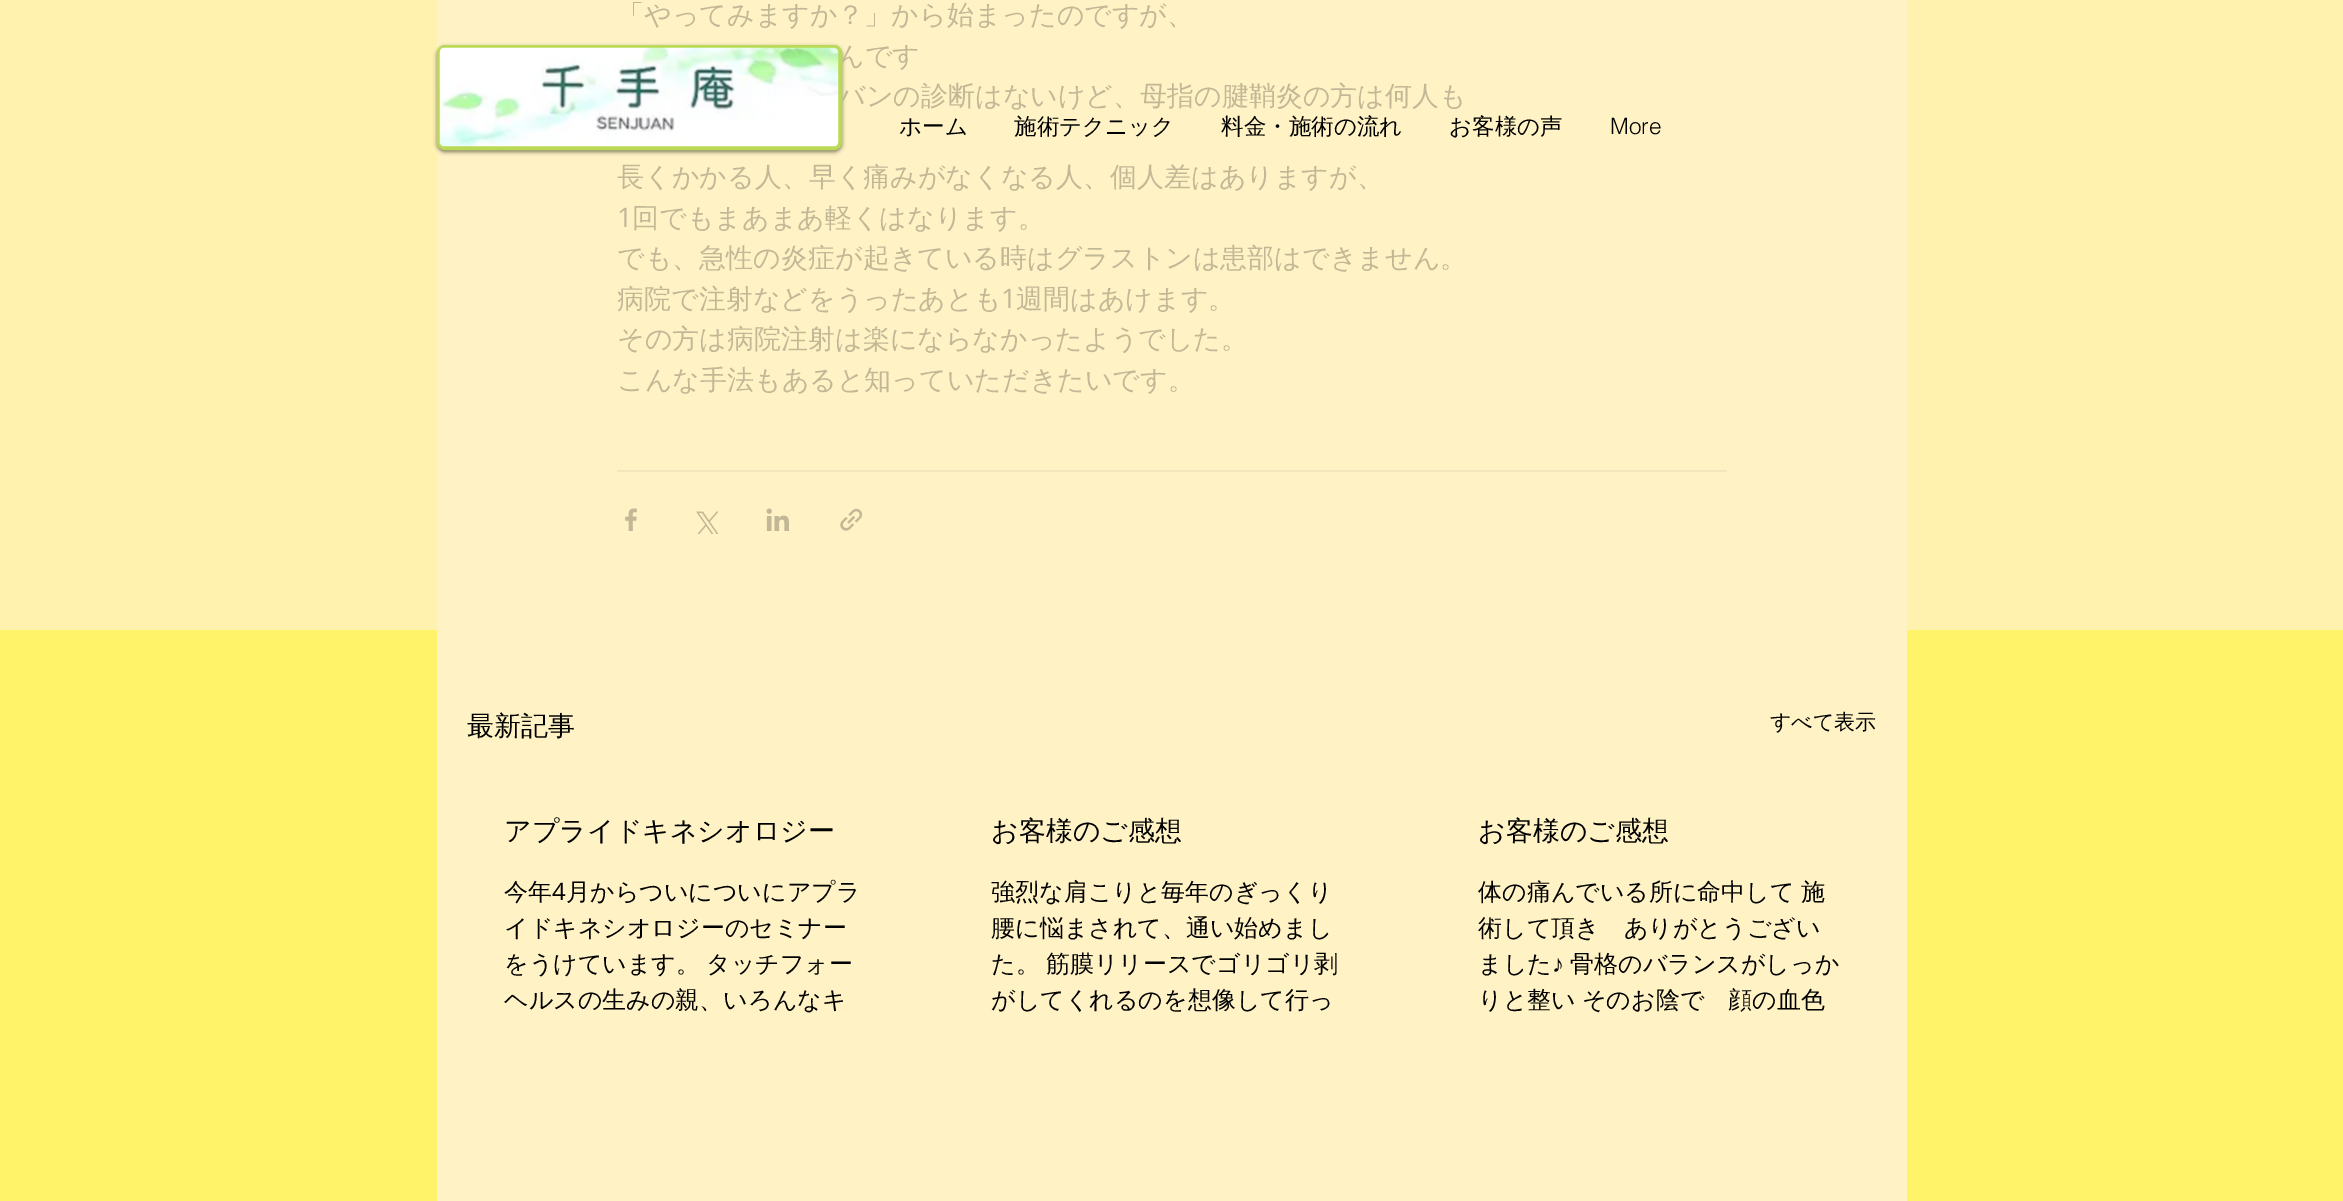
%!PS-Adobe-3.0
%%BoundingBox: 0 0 2343 1201
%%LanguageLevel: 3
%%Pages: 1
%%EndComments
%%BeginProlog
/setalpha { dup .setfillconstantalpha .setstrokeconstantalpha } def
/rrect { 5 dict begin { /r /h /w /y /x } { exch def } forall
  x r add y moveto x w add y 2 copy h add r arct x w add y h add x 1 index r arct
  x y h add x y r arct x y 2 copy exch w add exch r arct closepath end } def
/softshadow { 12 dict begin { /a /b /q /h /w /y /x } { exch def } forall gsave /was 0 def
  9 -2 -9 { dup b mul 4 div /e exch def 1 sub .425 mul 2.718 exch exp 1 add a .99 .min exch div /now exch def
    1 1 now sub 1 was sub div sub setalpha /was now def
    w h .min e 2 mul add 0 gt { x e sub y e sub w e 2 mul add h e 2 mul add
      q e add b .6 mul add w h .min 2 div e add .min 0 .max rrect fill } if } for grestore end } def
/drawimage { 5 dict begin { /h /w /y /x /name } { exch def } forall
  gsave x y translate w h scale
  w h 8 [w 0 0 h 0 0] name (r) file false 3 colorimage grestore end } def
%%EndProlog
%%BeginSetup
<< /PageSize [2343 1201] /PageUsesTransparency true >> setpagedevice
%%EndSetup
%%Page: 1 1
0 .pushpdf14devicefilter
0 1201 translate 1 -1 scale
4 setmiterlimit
1 0.953 0.412 setrgbcolor
0 0 2343 1201 rectfill
1 0.949 0.686 setrgbcolor
0 0 2343 630 rectfill
1 0.949 0.773 setrgbcolor
437 0 1470 1201 rectfill
0.953 0.902 0.737 setrgbcolor
617 470 1110 2 rectfill
(images/1.raw) 625 508 12 23 drawimage
(images/2.raw) 696 511 23 23 drawimage
(images/3.raw) 766 508 23 23 drawimage
(images/4.raw) 840 508 23 23 drawimage
0 setgray
437 47 405 105 8 2 0.5 softshadow
/WenQuanYiZenHei-Medium [27 0 0 -27 0 0] selectfont
0.761 0.722 0.588 setrgbcolor
617 24 moveto (「やってみますか？」から始まったのですが、) show
837 65 moveto (んです) show
838 105 moveto (バンの診断はないけど、母指の腱鞘炎の方は何人も) show
617 186 moveto (長くかかる人、早く痛みがなくなる人、個人差はありますが、) show
/OpenSans-Regular [27 0 0 -27 0 0] selectfont
617 227 moveto (1) show
/WenQuanYiZenHei-Medium [27 0 0 -27 0 0] selectfont
632 227 moveto (回でもまあまあ軽くはなります。) show
617 267 moveto (でも、急性の炎症が起きている時はグラストンは患部はできません。) show
617 308 moveto (病院で注射などをうったあとも) show
/OpenSans-Regular [27 0 0 -27 0 0] selectfont
1001 308 moveto (1) show
/WenQuanYiZenHei-Medium [27 0 0 -27 0 0] selectfont
1016 308 moveto (週間はあけます。) show
617 348 moveto (その方は病院注射は楽にならなかったようでした。) show
617 389 moveto (こんな手法もあると知っていただきたいです。) show
0 setgray
467 735 moveto (最新記事) show
/WenQuanYiZenHei-Medium [21 0 0 -21 0 0] selectfont
1770 729 moveto (すべて表示) show
/WenQuanYiZenHei-Medium [27 0 0 -27 0 0] selectfont
504 840 moveto (アプライドキネシオロジー) show
/WenQuanYiZenHei-Medium [24 0 0 -24 0 0] selectfont
504 900 moveto (今年) show
/OpenSans-Regular [24 0 0 -24 0 0] selectfont
552 900 moveto (4) show
/WenQuanYiZenHei-Medium [24 0 0 -24 0 0] selectfont
566 900 moveto (月からついについにアプラ) show
504 936 moveto (イドキネシオロジーのセミナー) show
504 972 moveto -1 0 32 (をうけています。 タッチフォー) widthshow
504 1008 moveto (ヘルスの生みの親、いろんなキ) show
/WenQuanYiZenHei-Medium [27 0 0 -27 0 0] selectfont
991 840 moveto (お客様のご感想) show
/WenQuanYiZenHei-Medium [24 0 0 -24 0 0] selectfont
991 900 moveto (強烈な肩こりと毎年のぎっくり) show
991 936 moveto (腰に悩まされて、通い始めまし) show
991 972 moveto -1 0 32 (た。 筋膜リリースでゴリゴリ剥) widthshow
991 1008 moveto (がしてくれるのを想像して行っ) show
/WenQuanYiZenHei-Medium [27 0 0 -27 0 0] selectfont
1478 840 moveto (お客様のご感想) show
/WenQuanYiZenHei-Medium [24 0 0 -24 0 0] selectfont
1478 900 moveto -1 0 32 (体の痛んでいる所に命中して 施) widthshow
1478 936 moveto (術して頂き　ありがとうござい) show
1478 972 moveto (ました) show
/LiberationSans-Regular [24 0 0 -24 0 0] selectfont
1552 972 moveto (♪) show
/WenQuanYiZenHei-Medium [24 0 0 -24 0 0] selectfont
1570 972 moveto (骨格のバランスがしっか) show
1478 1008 moveto -1 0 32 (りと整い そのお陰で　顔の血色) widthshow
0.729 0.855 0.333 setrgbcolor
438.5 46.5 402 102 6.5 rrect gsave fill grestore
3 setlinewidth
stroke
(images/5.raw) 439 47 400 100 drawimage
/WenQuanYiZenHei-Medium [22.5 0 0 -22.5 0 0] selectfont
0 setgray
899 134 moveto (ホーム) show
1014 134 moveto (施術テクニック) show
1221 134 moveto (料金・施術の流れ) show
1449 134 moveto (お客様の声) show
/helvetica-Light [22.5 0 0 -22.5 0 0] selectfont
1610 134 moveto (More) show
.poppdf14devicefilter showpage
%%EOF
